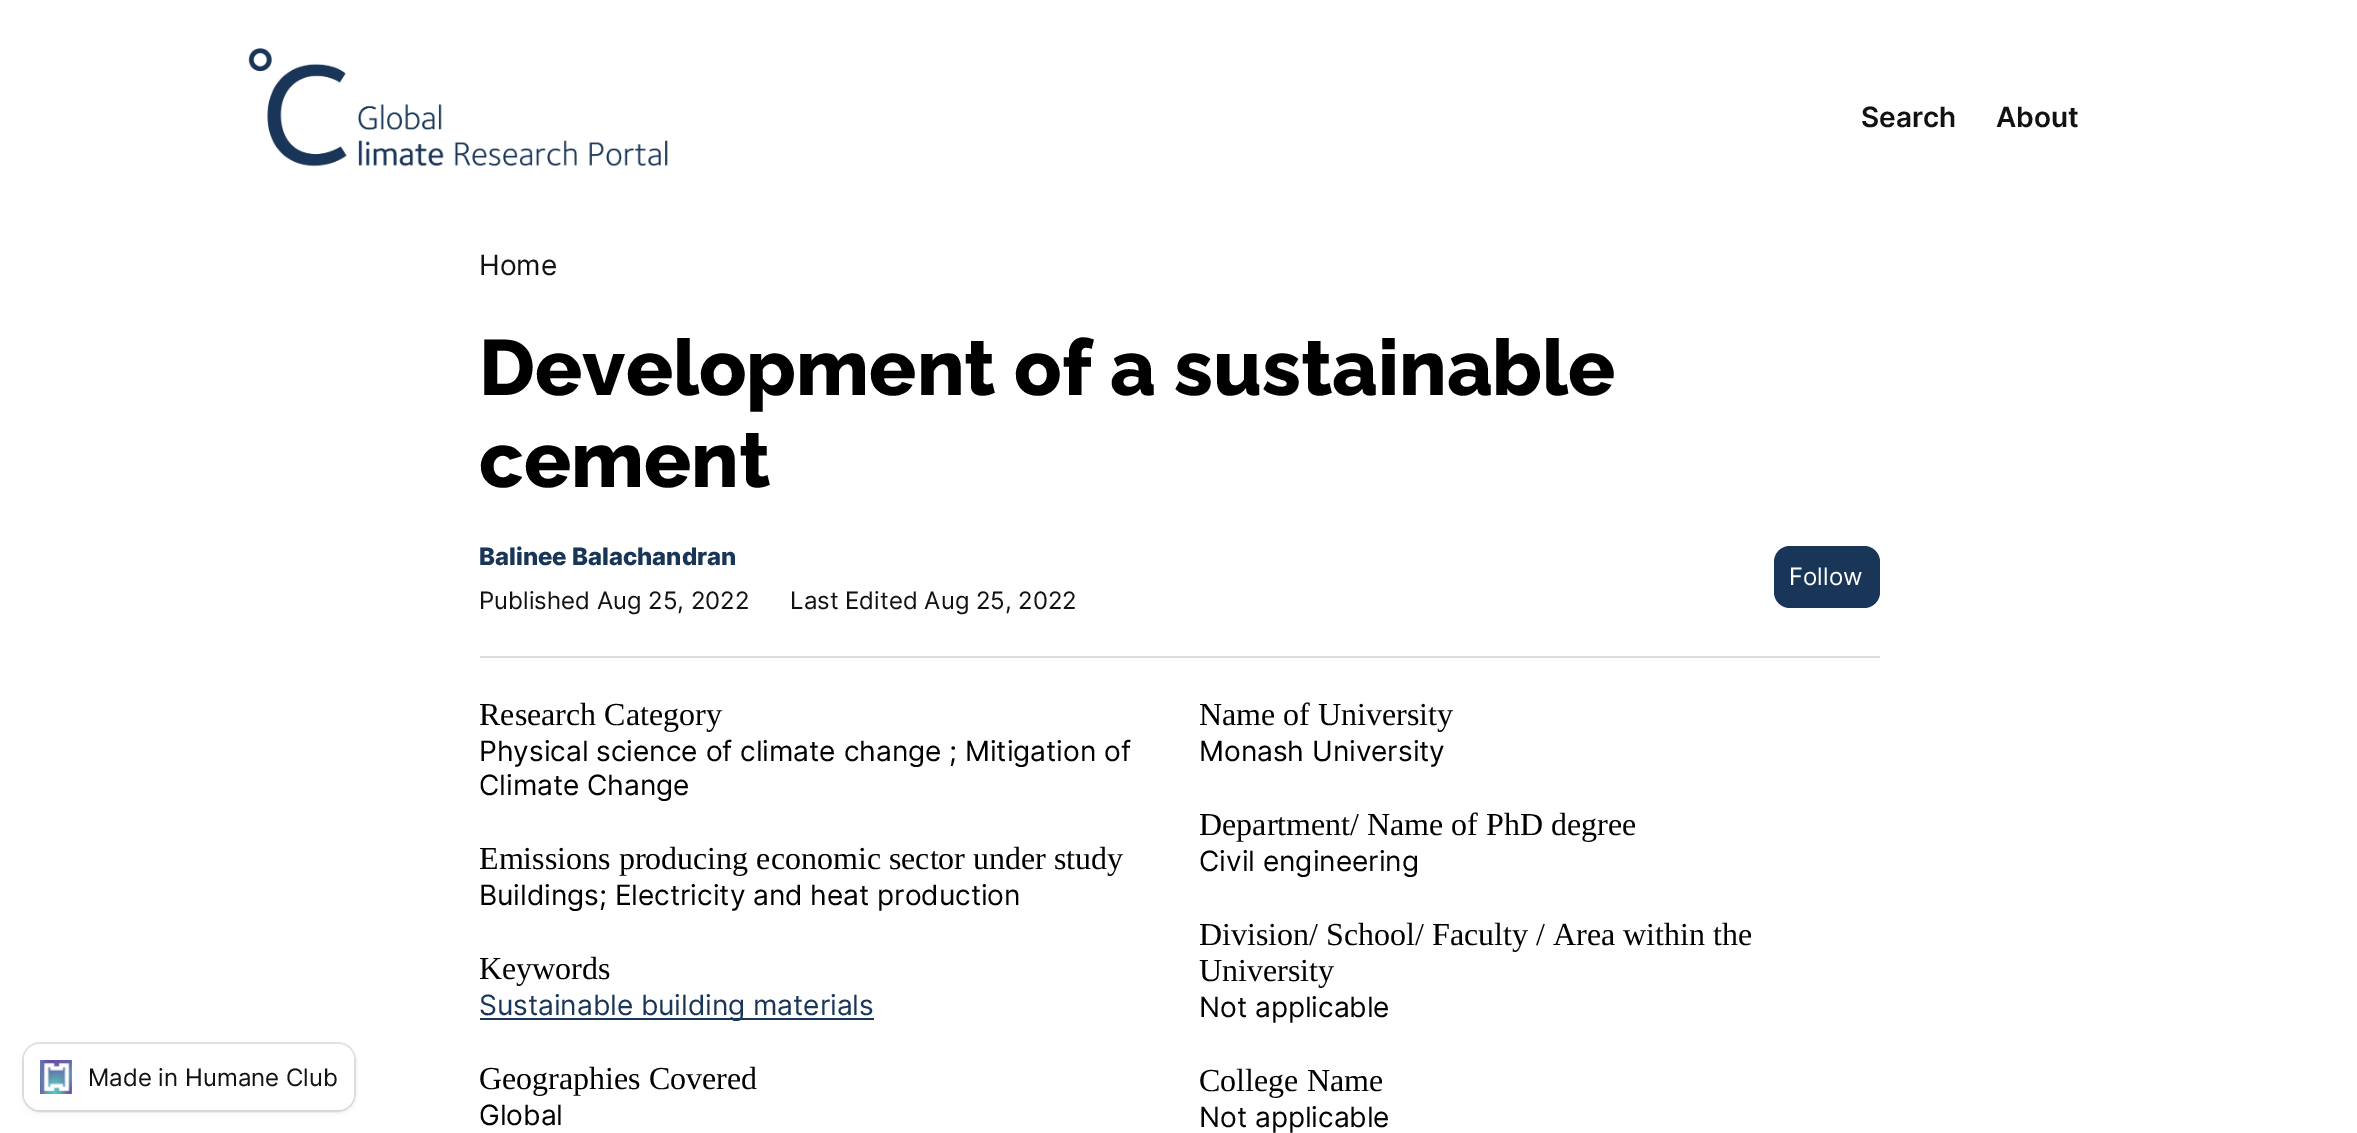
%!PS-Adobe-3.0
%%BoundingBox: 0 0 2357 1133
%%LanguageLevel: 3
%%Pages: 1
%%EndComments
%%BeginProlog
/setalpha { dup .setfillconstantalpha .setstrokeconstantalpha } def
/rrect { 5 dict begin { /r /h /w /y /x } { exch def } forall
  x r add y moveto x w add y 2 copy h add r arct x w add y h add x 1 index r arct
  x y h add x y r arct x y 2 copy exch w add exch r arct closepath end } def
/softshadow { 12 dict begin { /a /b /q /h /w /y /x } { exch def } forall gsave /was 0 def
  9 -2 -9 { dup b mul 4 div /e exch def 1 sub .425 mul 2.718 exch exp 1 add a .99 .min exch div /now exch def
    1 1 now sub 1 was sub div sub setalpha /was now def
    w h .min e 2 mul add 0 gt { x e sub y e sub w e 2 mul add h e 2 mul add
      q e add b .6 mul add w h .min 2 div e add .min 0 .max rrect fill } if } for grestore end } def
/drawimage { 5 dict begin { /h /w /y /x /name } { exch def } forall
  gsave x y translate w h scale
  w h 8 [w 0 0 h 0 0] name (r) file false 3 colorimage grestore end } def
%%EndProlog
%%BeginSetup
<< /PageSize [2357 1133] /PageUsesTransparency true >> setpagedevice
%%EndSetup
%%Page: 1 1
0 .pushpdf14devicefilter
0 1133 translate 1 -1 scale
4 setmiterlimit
1 setgray
0 0 2357 1133 rectfill
0 setgray
24 1046 330 66 16 3 0.1 softshadow
0.1 setalpha
2 setlinewidth
23 1043 332 68 17 rrect stroke
1 setalpha
1 setgray
24 1044 330 66 16 rrect fill
(images/1.raw) 40 1060 32 34 drawimage
(images/2.raw) 248 48 420 119 drawimage
0.098 0.212 0.345 setrgbcolor
1774 546 106 62 16 rrect fill
0.863 setgray
480 656 1400 2 rectfill
0.098 0.212 0.345 setrgbcolor
480 1018 394 2 rectfill
/Inter-Regular [24 0 0 -24 0 0] selectfont
0.071 setgray
88 1086 moveto (Made in Humane Club) show
/Inter-SemiBold [28 0 0 -28 0 0] selectfont
1861 127 moveto (Search) show
1996 127 moveto (About) show
/Inter-Regular [28 0 0 -28 0 0] selectfont
479 275 moveto (Home) show
/Raleway-ExtraBold [78.1 0 0 -78.1 0 0] selectfont
0 setgray
479 395 moveto (Development of a sustainable) show
479 487 moveto (cement) show
/Inter-ExtraBold [24 0 0 -24 0 0] selectfont
0.098 0.212 0.345 setrgbcolor
479 565 moveto (Balinee Balachandran) show
/Inter-Regular [24 0 0 -24 0 0] selectfont
0.071 setgray
479 609 moveto (Published Aug 25, 2022) show
790 609 moveto (Last Edited Aug 25, 2022) show
1 setgray
1789 585 moveto (Follow) show
/LiberationSerif-Regular [32 0 0 -32 0 0] selectfont
0 setgray
479 725 moveto (Research Category) show
/Inter-Regular [28 0 0 -28 0 0] selectfont
479 761 moveto (Physical science of climate change ; Mitigation of) show
479 795 moveto (Climate Change) show
/LiberationSerif-Regular [32 0 0 -32 0 0] selectfont
479 869 moveto (Emissions producing economic sector under study) show
/Inter-Regular [28 0 0 -28 0 0] selectfont
479 905 moveto (Buildings; Electricity and heat production) show
/LiberationSerif-Regular [32 0 0 -32 0 0] selectfont
479 979 moveto (Keywords) show
/Inter-Regular [28 0 0 -28 0 0] selectfont
0.098 0.212 0.345 setrgbcolor
479 1015 moveto (Sustainable building materials) show
/LiberationSerif-Regular [32 0 0 -32 0 0] selectfont
0 setgray
479 1089 moveto (Geographies Covered) show
/Inter-Regular [28 0 0 -28 0 0] selectfont
479 1125 moveto (Global) show
/LiberationSerif-Regular [32 0 0 -32 0 0] selectfont
1199 725 moveto (Name of University) show
/Inter-Regular [28 0 0 -28 0 0] selectfont
1199 761 moveto (Monash University) show
/LiberationSerif-Regular [32 0 0 -32 0 0] selectfont
1199 835 moveto (Department/ Name of PhD degree) show
/Inter-Regular [28 0 0 -28 0 0] selectfont
1199 871 moveto (Civil engineering) show
/LiberationSerif-Regular [32 0 0 -32 0 0] selectfont
1199 945 moveto (Division/ School/ Faculty / Area within the) show
1199 981 moveto (University) show
/Inter-Regular [28 0 0 -28 0 0] selectfont
1199 1017 moveto (Not applicable) show
/LiberationSerif-Regular [32 0 0 -32 0 0] selectfont
1199 1091 moveto (College Name) show
/Inter-Regular [28 0 0 -28 0 0] selectfont
1199 1127 moveto (Not applicable) show
.poppdf14devicefilter showpage
%%EOF
